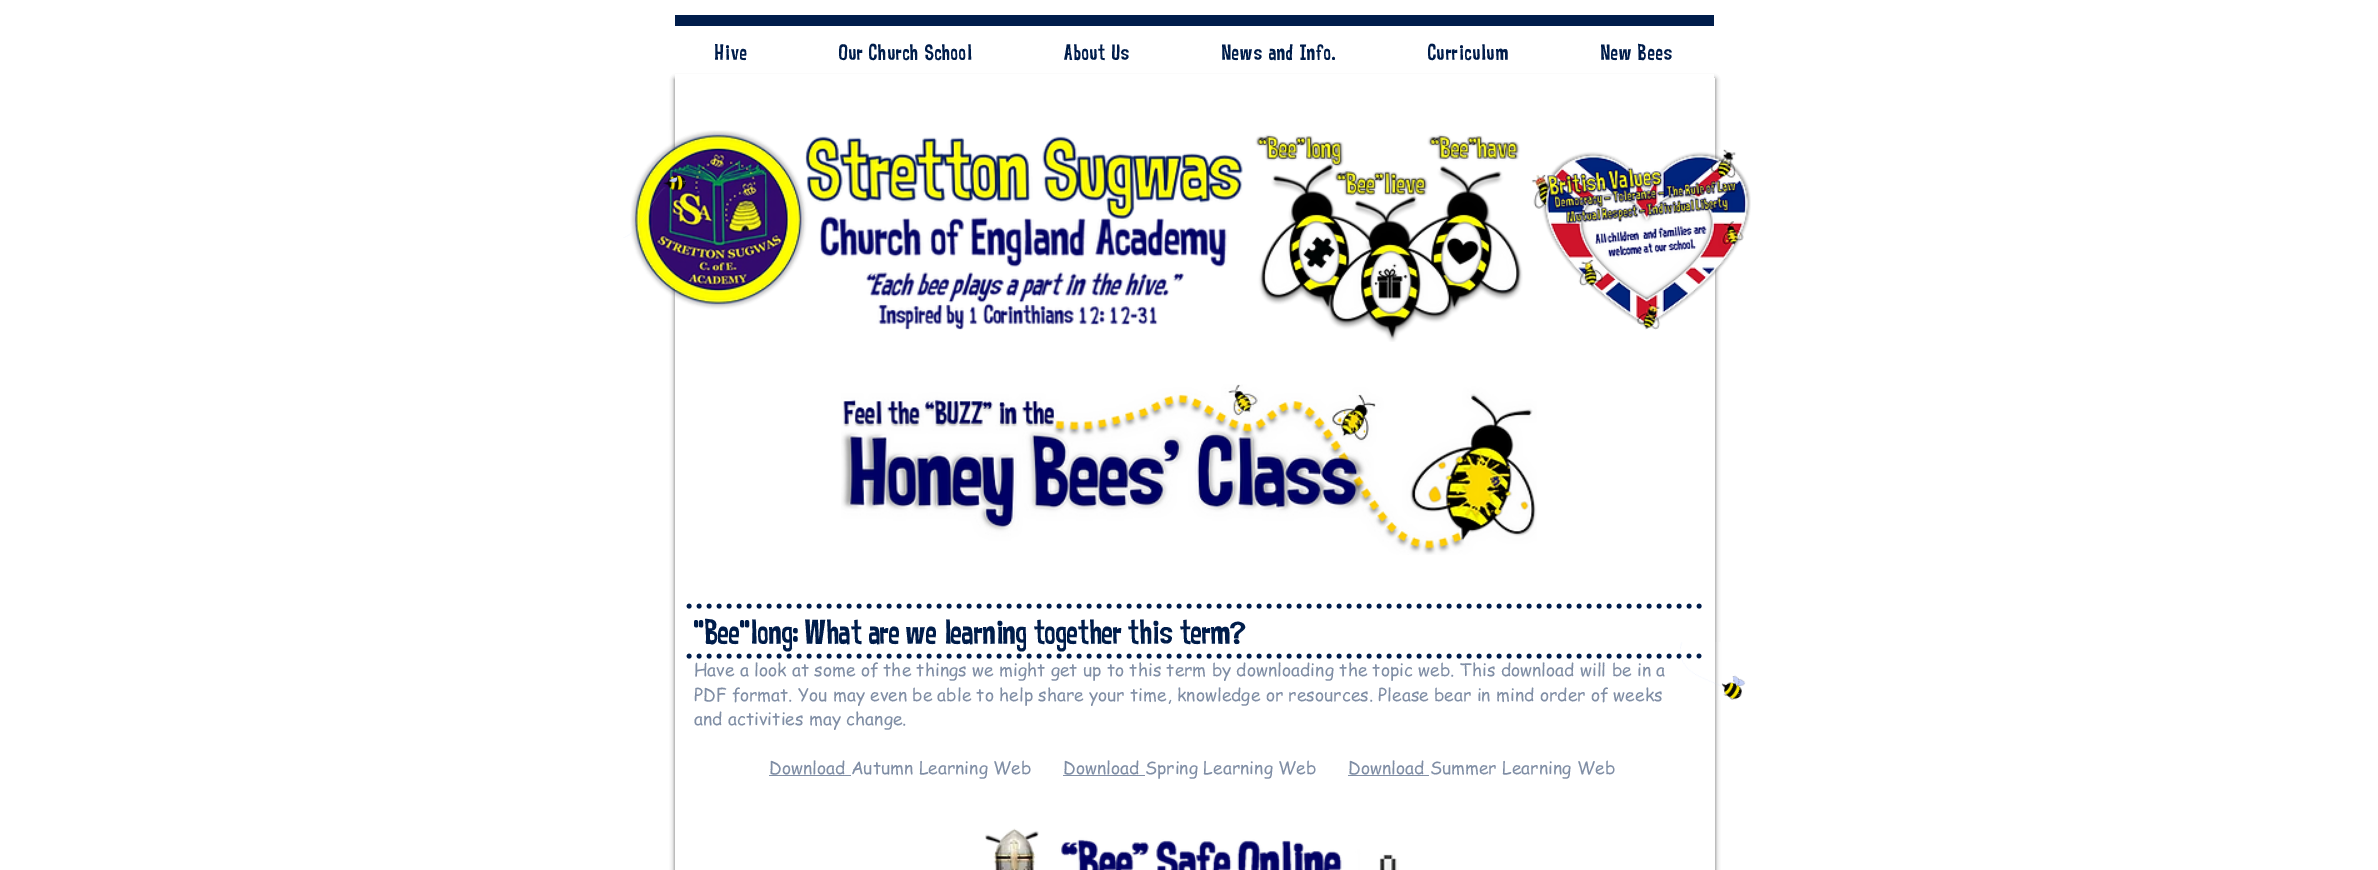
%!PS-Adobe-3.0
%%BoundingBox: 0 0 2378 870
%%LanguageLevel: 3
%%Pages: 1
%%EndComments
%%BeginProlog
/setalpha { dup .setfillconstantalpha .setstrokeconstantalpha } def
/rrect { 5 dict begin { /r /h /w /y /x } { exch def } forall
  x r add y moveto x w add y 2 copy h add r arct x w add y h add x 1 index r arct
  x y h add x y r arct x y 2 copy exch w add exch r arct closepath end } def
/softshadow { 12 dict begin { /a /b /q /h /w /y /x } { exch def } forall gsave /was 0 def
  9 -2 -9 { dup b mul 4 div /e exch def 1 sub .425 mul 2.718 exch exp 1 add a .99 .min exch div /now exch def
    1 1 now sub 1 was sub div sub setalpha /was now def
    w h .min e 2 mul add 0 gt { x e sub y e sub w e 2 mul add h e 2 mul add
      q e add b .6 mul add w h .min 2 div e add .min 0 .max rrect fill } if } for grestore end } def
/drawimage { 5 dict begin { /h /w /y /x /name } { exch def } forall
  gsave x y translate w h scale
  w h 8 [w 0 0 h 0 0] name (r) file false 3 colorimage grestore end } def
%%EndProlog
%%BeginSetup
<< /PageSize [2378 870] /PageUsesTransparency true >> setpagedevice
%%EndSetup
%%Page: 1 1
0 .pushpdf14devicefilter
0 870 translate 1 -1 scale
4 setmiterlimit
1 setgray
0 0 2378 870 rectfill
0 0.114 0.294 setrgbcolor
675 15 1039 11 rectfill
gsave
newpath 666 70 moveto 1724 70 lineto 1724 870 lineto 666 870 lineto closepath 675 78 moveto 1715 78 lineto 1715 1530 lineto 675 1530 lineto closepath eoclip newpath
0 setgray
675 79 1040 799 0 2.5 0.6 softshadow
grestore
1 setgray
675 74 1039 4 rectfill
(images/2.raw) 630 130 613 200 drawimage
(images/1.raw) 623 175 63 63 drawimage
(images/3.raw) 1255 134 268 208 drawimage
(images/4.raw) 1531 149 220 181 drawimage
(images/5.raw) 841 384 696 171 drawimage
0 0.114 0.294 setrgbcolor
5 setlinewidth
1 setlinecap
[0 10] 0 setdash
newpath 689 606 moveto 1700 606 lineto stroke
newpath 689 656 moveto 1700 656 lineto stroke
0.502 0.557 0.647 setrgbcolor
769 775 82 1 rectfill
1063 775 82 1 rectfill
1348 775 81 1 rectfill
(images/6.raw) 985 828 414 42 drawimage
(images/7.raw) 1680 642 66 58 drawimage
/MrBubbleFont-Regular [20 0 0 -20 0 0] selectfont
0 0.114 0.294 setrgbcolor
715 60 moveto 1 0 (Hive) ashow
839 60 moveto 1 0 (Our Church School) ashow
1064 60 moveto 1 0 (About Us) ashow
1222 60 moveto 1 0 (News and Info.) ashow
1428 60 moveto 1 0 (Curriculum) ashow
1601 60 moveto 1 0 (New Bees) ashow
/MrBubbleFont-Regular [31.25 0 0 -31.25 0 0] selectfont
694 644 moveto ("Bee"long: What are we learning together this term?) show
/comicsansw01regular-Regular [17.5 0 0 -17.5 0 0] selectfont
0.502 0.557 0.647 setrgbcolor
694 676 moveto (Have a look at some of the things we might get up to this term by downloading the topic web. This download will be in a) show
694 701 moveto (PDF format. You may even be able to help share your time, knowledge or resources. Please bear in mind order of weeks) show
694 725 moveto (and activities may change.) show
769 774 moveto (Download Autumn Learning Web) show
1063 774 moveto (Download Spring Learning Web) show
1348 774 moveto (Download Summer Learning Web) show
.poppdf14devicefilter showpage
%%EOF
